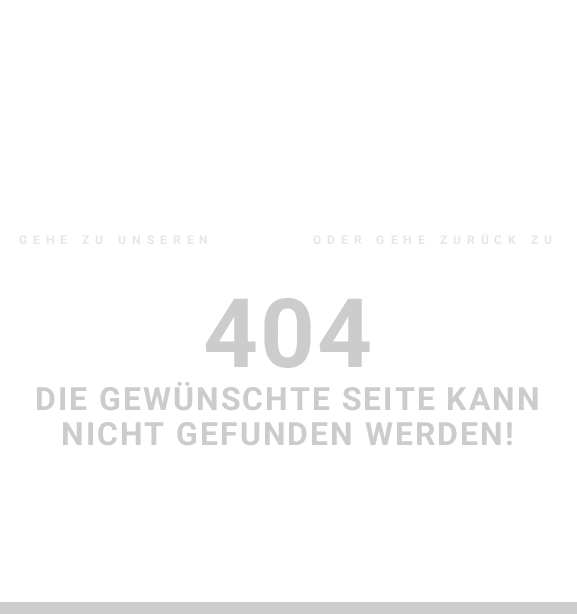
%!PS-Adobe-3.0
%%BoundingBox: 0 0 577 614
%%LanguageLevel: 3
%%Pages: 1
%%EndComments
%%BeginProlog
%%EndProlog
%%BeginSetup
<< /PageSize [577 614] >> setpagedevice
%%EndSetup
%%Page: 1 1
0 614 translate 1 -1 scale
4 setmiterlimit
1 setgray
0 0 577 614 rectfill
0.804 setgray
0 602 577 12 rectfill
/Roboto-Bold [12 0 0 -12 0 0] selectfont
0.902 setgray
19 244 moveto 6 0 (GEHE ZU UNSEREN) ashow
313 244 moveto 6 0 (ODER GEHE ZURÜCK ZU) ashow
/Roboto-Bold [96 0 0 -96 0 0] selectfont
0.8 setgray
203 367 moveto 2 0 (404) ashow
/Roboto-Bold [32 0 0 -32 0 0] selectfont
35 410 moveto 2 0 (DIE GEWÜNSCHTE SEITE KANN) ashow
61 445 moveto 2 0 (NICHT GEFUNDEN WERDEN!) ashow
showpage
%%EOF
